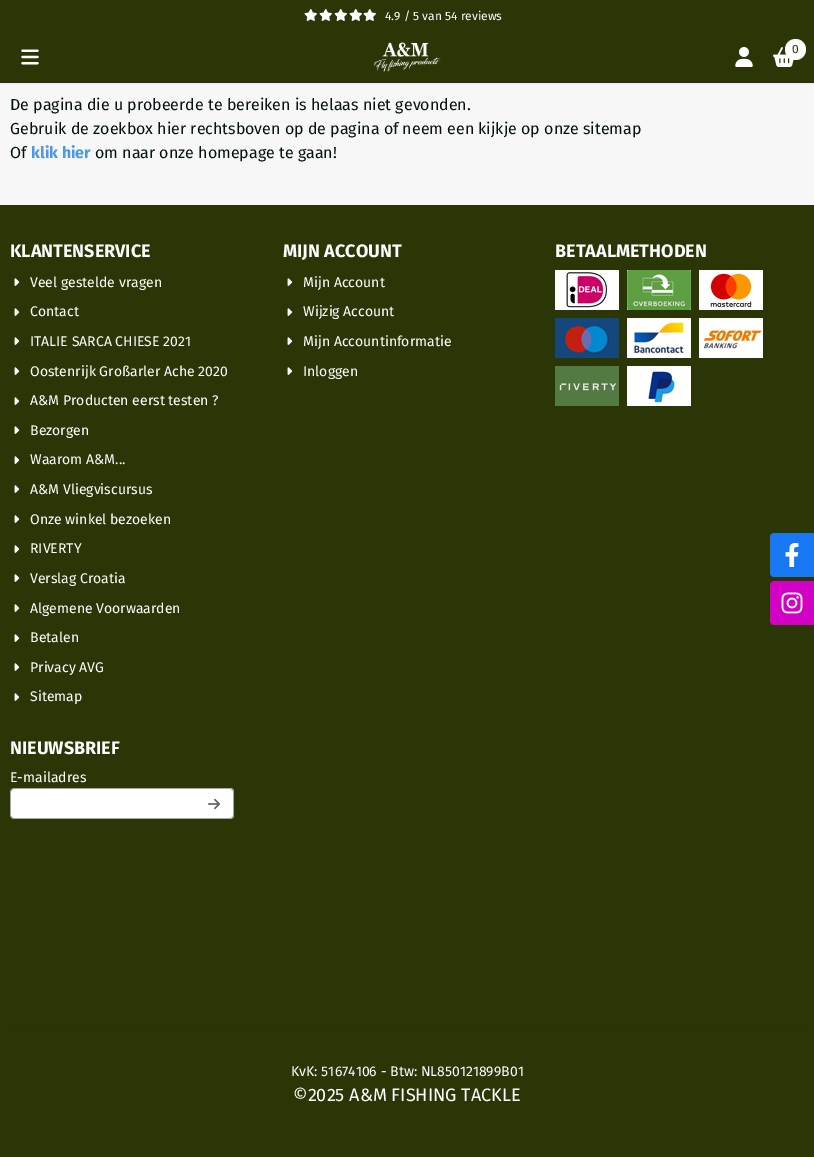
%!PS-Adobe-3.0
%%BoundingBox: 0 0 814 1157
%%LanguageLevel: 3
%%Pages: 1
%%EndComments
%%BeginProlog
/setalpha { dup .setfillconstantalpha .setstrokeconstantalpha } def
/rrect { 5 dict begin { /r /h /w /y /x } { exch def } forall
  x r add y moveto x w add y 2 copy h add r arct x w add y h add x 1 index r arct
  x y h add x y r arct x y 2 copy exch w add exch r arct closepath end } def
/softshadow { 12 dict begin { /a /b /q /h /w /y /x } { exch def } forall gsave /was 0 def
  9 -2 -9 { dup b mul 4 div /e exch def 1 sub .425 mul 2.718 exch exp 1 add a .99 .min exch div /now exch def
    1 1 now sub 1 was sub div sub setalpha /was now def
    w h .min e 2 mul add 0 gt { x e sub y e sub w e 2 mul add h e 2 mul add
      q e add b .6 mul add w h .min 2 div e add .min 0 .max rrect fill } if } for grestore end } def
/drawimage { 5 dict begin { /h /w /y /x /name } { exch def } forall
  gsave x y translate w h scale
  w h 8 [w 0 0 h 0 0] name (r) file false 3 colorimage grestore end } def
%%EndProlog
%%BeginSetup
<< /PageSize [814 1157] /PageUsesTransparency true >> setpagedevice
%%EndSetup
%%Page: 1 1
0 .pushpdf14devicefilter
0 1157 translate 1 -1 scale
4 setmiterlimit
0.969 0.969 0.973 setrgbcolor
0 0 814 1157 rectfill
0.165 0.212 0.024 setrgbcolor
0 0 814 32 rectfill
(images/1.raw) 304 9 13 12 drawimage
(images/1.raw) 319 9 13 12 drawimage
(images/1.raw) 334 9 13 12 drawimage
(images/1.raw) 349 9 13 12 drawimage
(images/1.raw) 363 9 13 12 drawimage
0 setgray
0 33 814 51 0 1 0.05 softshadow
0.165 0.212 0.024 setrgbcolor
0 32 814 50 rectfill
0.157 0.2 0.024 setrgbcolor
0 82 814 1 rectfill
(images/2.raw) 21 49 18 16 drawimage
(images/3.raw) 373 42 68 30 drawimage
(images/4.raw) 735 47 18 20 drawimage
(images/5.raw) 773 47 21 20 drawimage
1 setgray
newpath 795.5 49.5 10.5 0 360 arc closepath fill
0.165 0.212 0.024 setrgbcolor
0 205 814 952 rectfill
(images/6.raw) 14 278 6 8 drawimage
(images/6.raw) 14 308 6 8 drawimage
(images/6.raw) 14 337 6 8 drawimage
(images/6.raw) 14 367 6 8 drawimage
(images/6.raw) 14 397 6 8 drawimage
(images/6.raw) 14 426 6 8 drawimage
(images/6.raw) 14 456 6 8 drawimage
(images/6.raw) 14 485 6 8 drawimage
(images/6.raw) 14 515 6 8 drawimage
(images/6.raw) 14 545 6 8 drawimage
(images/6.raw) 14 574 6 8 drawimage
(images/6.raw) 14 604 6 8 drawimage
(images/6.raw) 14 634 6 8 drawimage
(images/6.raw) 14 663 6 8 drawimage
(images/6.raw) 14 693 6 8 drawimage
(images/6.raw) 287 278 6 8 drawimage
(images/6.raw) 287 308 6 8 drawimage
(images/6.raw) 287 337 6 8 drawimage
(images/6.raw) 287 367 6 8 drawimage
(images/7.raw) 555 270 64 40 drawimage
(images/8.raw) 627 270 64 40 drawimage
(images/9.raw) 699 270 64 40 drawimage
(images/10.raw) 555 318 64 40 drawimage
(images/11.raw) 627 318 64 40 drawimage
(images/12.raw) 699 318 64 40 drawimage
(images/13.raw) 555 366 64 40 drawimage
(images/14.raw) 627 366 64 40 drawimage
1 setgray
newpath 14 789 moveto 200 789 lineto 200 818 lineto 14 818 lineto 12.5 818 11 816.5 11 815 curveto 11 792 lineto 11 790.5 12.5 789 14 789 curveto closepath fill
0.647 0.655 0.671 setrgbcolor
newpath 14 788 moveto 200 788 lineto 200 819 lineto 14 819 lineto 12 819 10 817 10 815 curveto 10 792 lineto 10 790 12 788 14 788 curveto closepath 14 789 moveto 200 789 lineto 200 818 lineto 14 818 lineto 12 818 11 817 11 815 curveto 11 792 lineto 11 790 12 789 14 789 curveto closepath eofill
1 setgray
newpath 196 788 moveto 230 788 lineto 232 788 234 790 234 792 curveto 234 815 lineto 234 817 232 819 230 819 curveto 196 819 lineto closepath fill
0.647 0.655 0.671 setrgbcolor
newpath 196 788 moveto 230 788 lineto 232 788 234 790 234 792 curveto 234 815 lineto 234 817 232 819 230 819 curveto 196 819 lineto closepath 196 789 moveto 230 789 lineto 231.5 789 233 790.5 233 792 curveto 233 815 lineto 233 816.5 231.5 818 230 818 curveto 196 818 lineto closepath eofill
(images/15.raw) 208 798 12 12 drawimage
0.157 0.2 0.024 setrgbcolor
10 1028 794 1 rectfill
0.094 0.467 0.949 setrgbcolor
newpath 774 533 moveto 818 533 lineto 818 577 lineto 774 577 lineto 772 577 770 575 770 573 curveto 770 537 lineto 770 535 772 533 774 533 curveto closepath fill
(images/16.raw) 785 543 14 24 drawimage
0.827 0 0.773 setrgbcolor
newpath 774 581 moveto 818 581 lineto 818 625 lineto 774 625 lineto 772 625 770 623 770 621 curveto 770 585 lineto 770 583 772 581 774 581 curveto closepath fill
(images/17.raw) 781 592 22 22 drawimage
/FiraSans-Regular [12 0 0 -12 0 0] selectfont
1 setgray
385 20 moveto (4.9 / 5 van 54 reviews) show
0.165 0.212 0.024 setrgbcolor
792 53 moveto (0) show
/FiraSans-Regular [16 0 0 -16 0 0] selectfont
0.008 0.075 0.067 setrgbcolor
10 110 moveto (De pagina die u probeerde te bereiken is helaas niet gevonden.) show
10 134 moveto (Gebruik de zoekbox hier rechtsboven op de pagina of neem een kijkje op onze sitemap) show
10 158 moveto (Of) show
/FiraSans-Bold [16 0 0 -16 0 0] selectfont
0.302 0.6 0.902 setrgbcolor
31 158 moveto (klik hier) show
/FiraSans-Regular [16 0 0 -16 0 0] selectfont
0.008 0.075 0.067 setrgbcolor
95 158 moveto (om naar onze homepage te gaan!) show
/FiraSans-Bold [18 0 0 -18 0 0] selectfont
1 setgray
10 257 moveto (KLANTENSERVICE) show
/FiraSans-Regular [14 0 0 -14 0 0] selectfont
30 287 moveto (Veel gestelde vragen) show
30 316 moveto (Contact) show
30 346 moveto (ITALIE SARCA CHIESE 2021) show
30 376 moveto (Oostenrijk Großarler Ache 2020) show
30 405 moveto (A&M Producten eerst testen ?) show
30 435 moveto (Bezorgen) show
30 464 moveto (Waarom A&M...) show
30 494 moveto (A&M Vliegviscursus) show
30 524 moveto (Onze winkel bezoeken) show
30 553 moveto (RIVERTY) show
30 583 moveto (Verslag Croatia) show
30 613 moveto (Algemene Voorwaarden) show
30 642 moveto (Betalen) show
30 672 moveto (Privacy AVG) show
30 701 moveto (Sitemap) show
/FiraSans-Bold [18 0 0 -18 0 0] selectfont
283 257 moveto (MIJN ACCOUNT) show
/FiraSans-Regular [14 0 0 -14 0 0] selectfont
303 287 moveto (Mijn Account) show
303 316 moveto (Wijzig Account) show
303 346 moveto (Mijn Accountinformatie) show
303 376 moveto (Inloggen) show
/FiraSans-Bold [18 0 0 -18 0 0] selectfont
555 257 moveto (BETAALMETHODEN) show
10 754 moveto (NIEUWSBRIEF) show
/FiraSans-Regular [14 0 0 -14 0 0] selectfont
10 782 moveto (E-mailadres) show
291 1076 moveto (KvK: 51674106 - Btw: NL850121899B01) show
/FiraSans-Regular [18 0 0 -18 0 0] selectfont
293 1101 moveto (©2025 A&M FISHING TACKLE) show
.poppdf14devicefilter showpage
%%EOF
